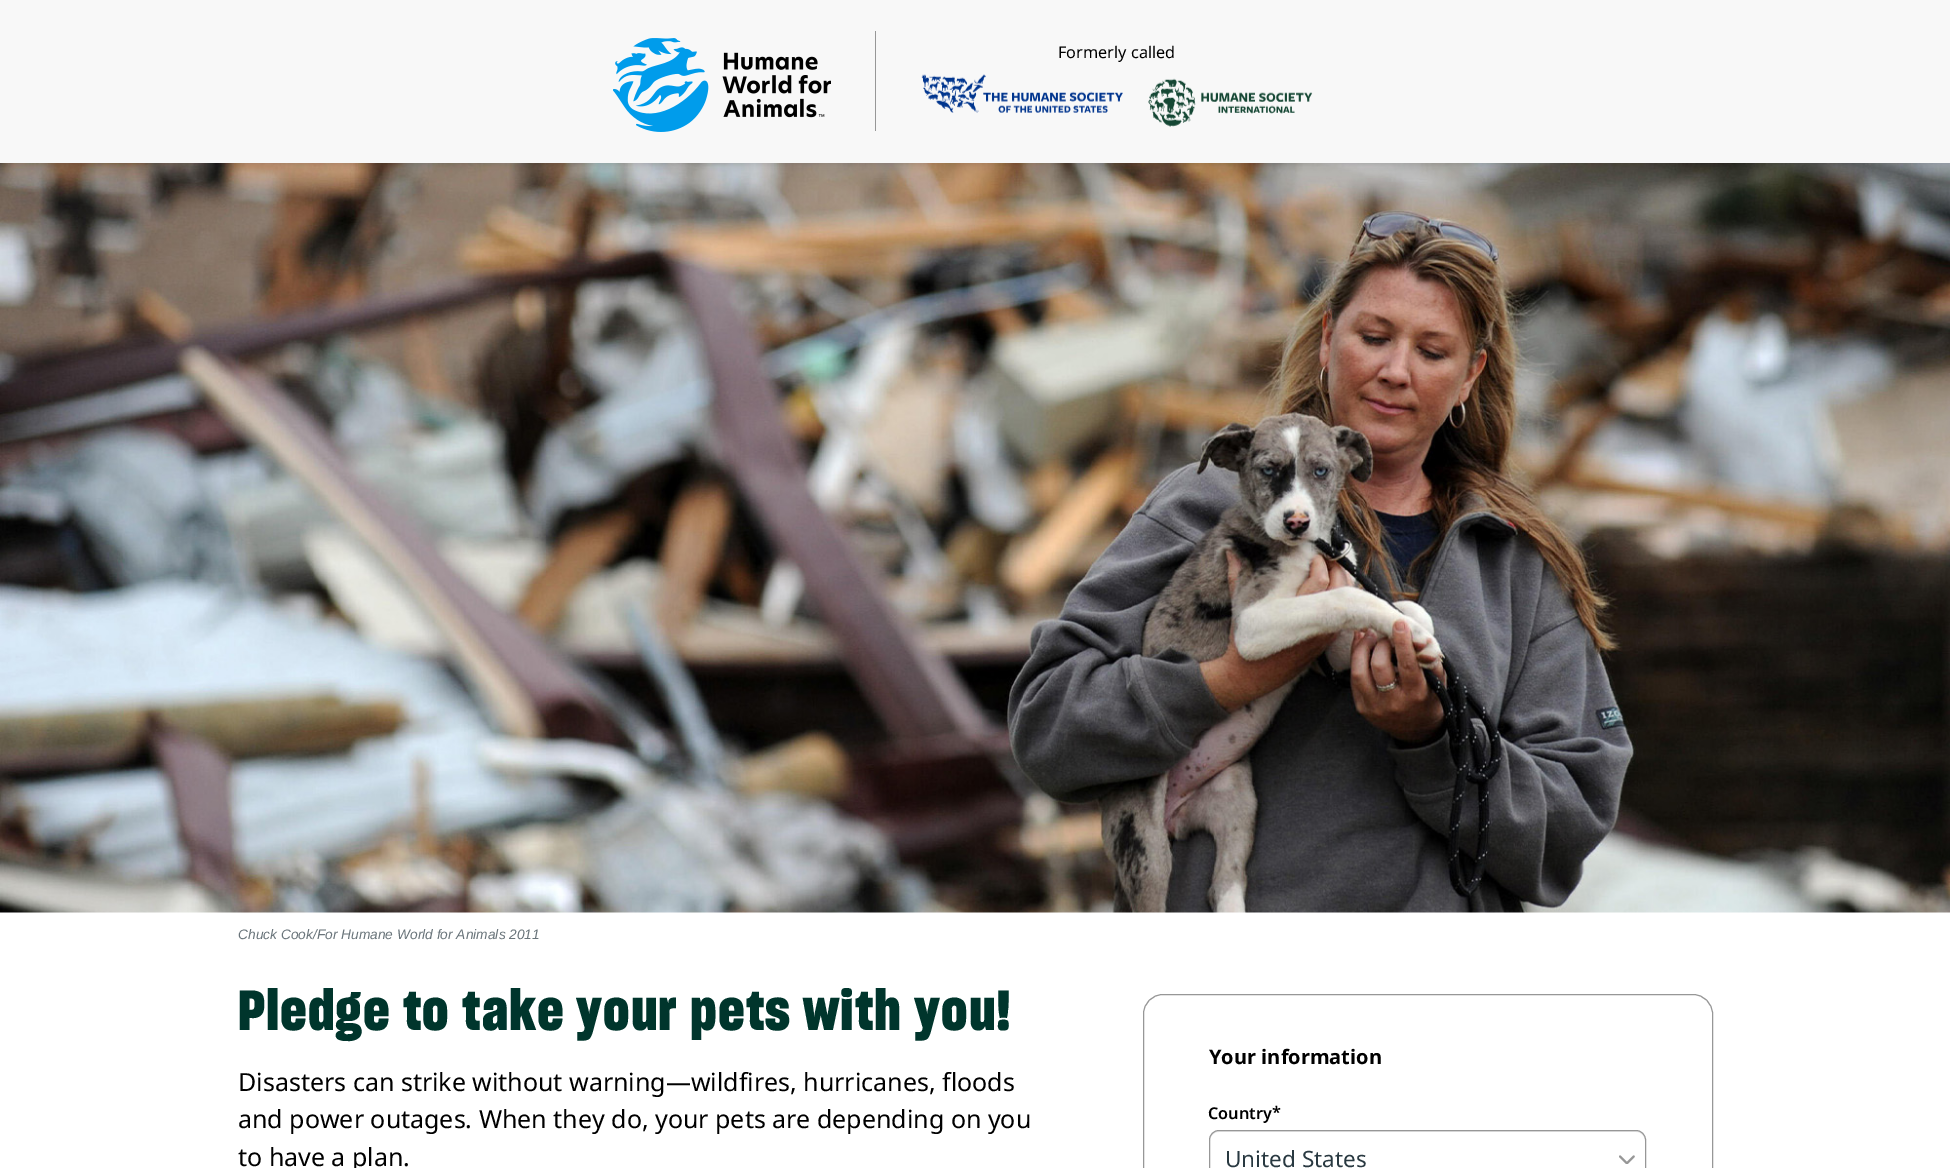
%!PS-Adobe-3.0
%%BoundingBox: 0 0 1950 1168
%%LanguageLevel: 3
%%Pages: 1
%%EndComments
%%BeginProlog
/setalpha { dup .setfillconstantalpha .setstrokeconstantalpha } def
/rrect { 5 dict begin { /r /h /w /y /x } { exch def } forall
  x r add y moveto x w add y 2 copy h add r arct x w add y h add x 1 index r arct
  x y h add x y r arct x y 2 copy exch w add exch r arct closepath end } def
/softshadow { 12 dict begin { /a /b /q /h /w /y /x } { exch def } forall gsave /was 0 def
  9 -2 -9 { dup b mul 4 div /e exch def 1 sub .425 mul 2.718 exch exp 1 add a .99 .min exch div /now exch def
    1 1 now sub 1 was sub div sub setalpha /was now def
    w h .min e 2 mul add 0 gt { x e sub y e sub w e 2 mul add h e 2 mul add
      q e add b .6 mul add w h .min 2 div e add .min 0 .max rrect fill } if } for grestore end } def
/drawimage { 5 dict begin { /h /w /y /x /name } { exch def } forall
  gsave x y translate w h scale
  w h 8 [w 0 0 h 0 0] name (r) file false 3 colorimage grestore end } def
%%EndProlog
%%BeginSetup
<< /PageSize [1950 1168] /PageUsesTransparency true >> setpagedevice
%%EndSetup
%%Page: 1 1
0 .pushpdf14devicefilter
0 1168 translate 1 -1 scale
4 setmiterlimit
1 setgray
0 0 1950 1168 rectfill
(images/3.raw) 0 163 1950 750 drawimage
0 setgray
0 3 1950 162 0 2.5 0.09 softshadow
0.973 setgray
0 0 1950 163 rectfill
(images/1.raw) 613 38 218 94 drawimage
0.592 setgray
875 31 1 100 rectfill
(images/2.raw) 921 74 392 53 drawimage
1143.5 994.5 569 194 19.5 rrect stroke
(images/4.raw) 1619 1155 16 9 drawimage
0.925 setgray
newpath 1219 1132 moveto 1636 1132 lineto 1641 1132 1645 1136 1645 1141 curveto 1645 1140 lineto 1645 1135 1641 1131 1636 1131 curveto 1219 1131 lineto 1214 1131 1210 1135 1210 1140 curveto 1210 1141 lineto 1210 1136 1214 1132 1219 1132 curveto closepath fill
0.592 setgray
1209.5 1130.5 436 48 9.5 rrect stroke
/NotoSans-Regular [16.25 0 0 -16.25 0 0] selectfont
0 setgray
1058 58 moveto (Formerly called) show
/LiberationSans-Italic [13.75 0 0 -13.75 0 0] selectfont
0.412 0.455 0.478 setrgbcolor
238 939 moveto (Chuck Cook/For Humane World for Animals 2011) show
/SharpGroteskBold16-Bold [55 0 0 -55 0 0] selectfont
0 0.208 0.173 setrgbcolor
238 1030 moveto 0.95 0 (Pledge to take your pets with you!) ashow
/NotoSans-Regular [25 0 0 -25 0 0] selectfont
0 setgray
238 1091 moveto (Disasters can strike without warning—wildfires, hurricanes, floods) show
238 1128 moveto (and power outages. When they do, your pets are depending on you) show
238 1166 moveto (to have a plan.) show
/NotoSans-Bold [20 0 0 -20 0 0] selectfont
1209 1064 moveto (Your information) show
/NotoSans-SemiBold [16.25 0 0 -16.25 0 0] selectfont
1208 1119 moveto (Country) show
1272 1118 moveto (*) show
/NotoSans-Regular [22.5 0 0 -22.5 0 0] selectfont
0.161 0.224 0.255 setrgbcolor
1225 1167 moveto (United States) show
.poppdf14devicefilter showpage
%%EOF
